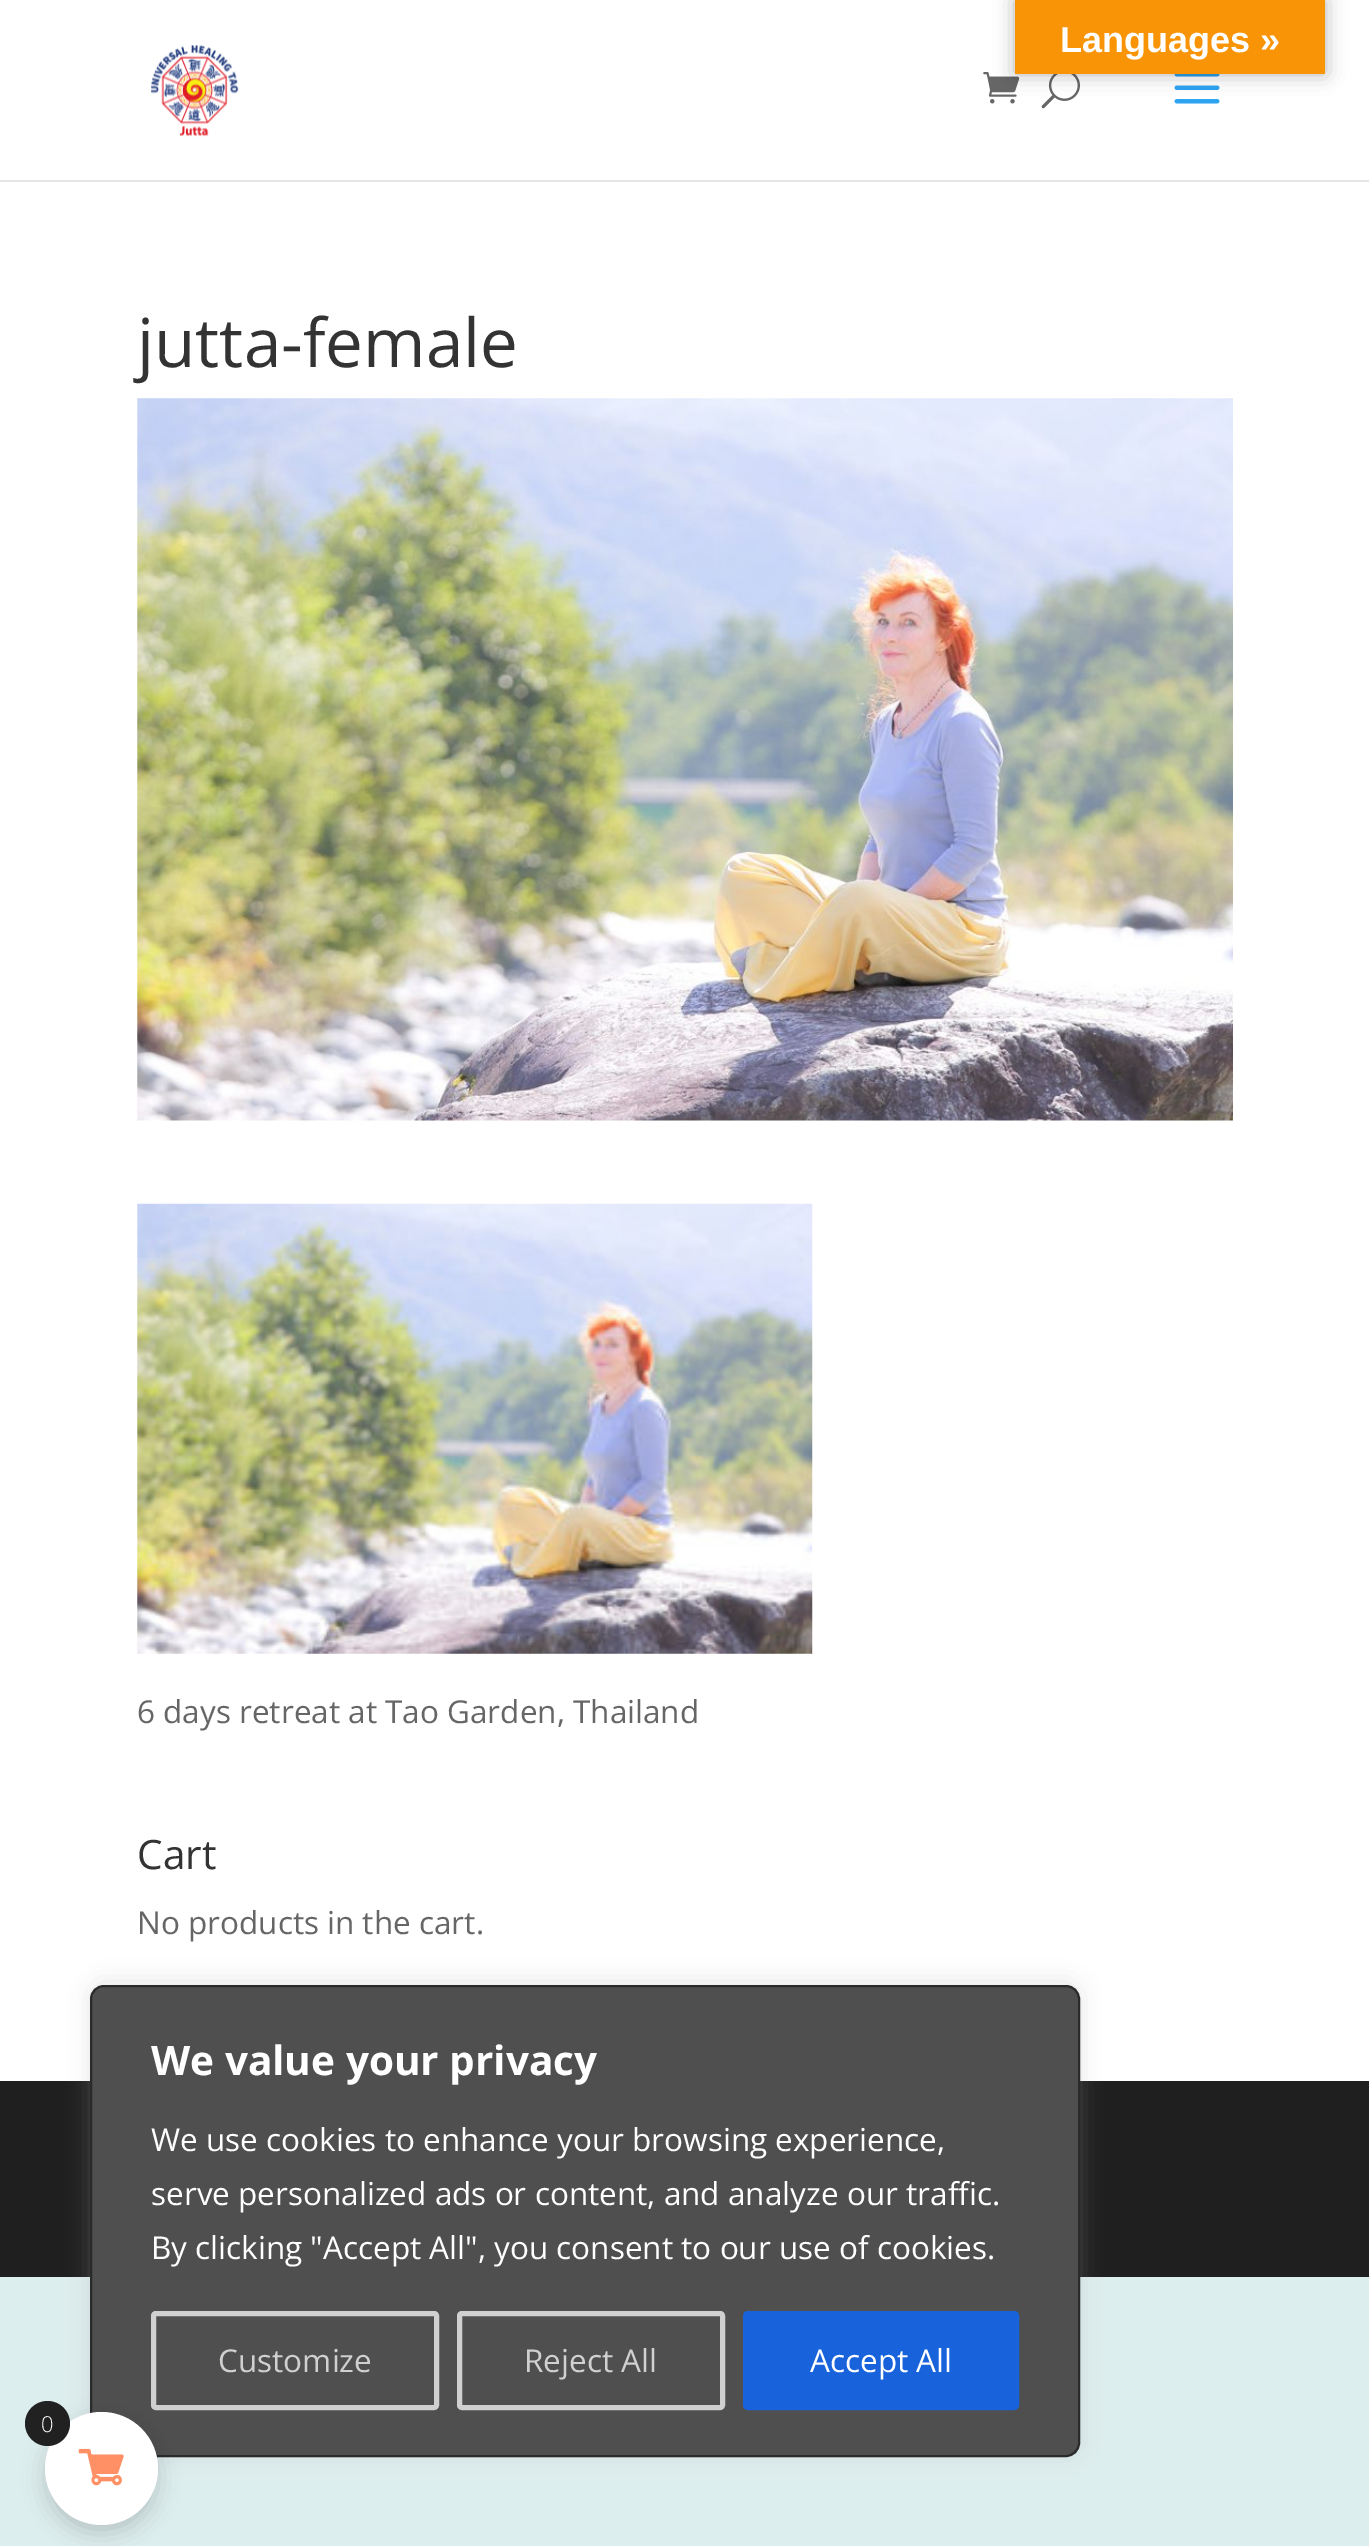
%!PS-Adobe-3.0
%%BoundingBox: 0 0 1369 2546
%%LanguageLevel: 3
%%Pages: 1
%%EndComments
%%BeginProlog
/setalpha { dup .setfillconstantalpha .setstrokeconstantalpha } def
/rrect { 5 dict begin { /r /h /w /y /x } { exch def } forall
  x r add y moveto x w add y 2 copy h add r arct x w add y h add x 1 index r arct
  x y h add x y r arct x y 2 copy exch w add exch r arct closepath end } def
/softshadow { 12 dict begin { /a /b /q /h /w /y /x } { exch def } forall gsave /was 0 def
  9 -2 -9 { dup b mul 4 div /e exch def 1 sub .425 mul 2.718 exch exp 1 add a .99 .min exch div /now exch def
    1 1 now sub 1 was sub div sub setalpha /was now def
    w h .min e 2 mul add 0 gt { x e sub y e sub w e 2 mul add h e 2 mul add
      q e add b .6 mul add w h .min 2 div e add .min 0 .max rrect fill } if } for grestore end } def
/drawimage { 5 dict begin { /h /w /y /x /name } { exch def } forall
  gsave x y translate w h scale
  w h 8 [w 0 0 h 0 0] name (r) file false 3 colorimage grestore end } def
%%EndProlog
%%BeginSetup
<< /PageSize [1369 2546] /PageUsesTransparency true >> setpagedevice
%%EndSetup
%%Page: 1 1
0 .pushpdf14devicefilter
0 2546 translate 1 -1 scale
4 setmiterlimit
0.867 0.933 0.937 setrgbcolor
0 0 1369 2546 rectfill
1 setgray
0 0 1369 180 rectfill
(images/2.raw) 983 72 37 32 drawimage
(images/3.raw) 1041 74 39 35 drawimage
(images/4.raw) 1174 74 46 30 drawimage
0 setgray
1015 0 310 74 0 10 0.3 softshadow
0.973 0.58 0.024 setrgbcolor
1015 0 310 74 rectfill
0.902 setgray
0 180 1369 2 rectfill
(images/1.raw) 151 44 88 93 drawimage
1 setgray
0 182 1369 1899 rectfill
(images/5.raw) 137 398 1096 723 drawimage
(images/6.raw) 137 1203 676 451 drawimage
0.122 setgray
0 2081 1369 196 rectfill
0.675 0.671 0.671 setrgbcolor
90 1982 990 473 14 11 0.3 softshadow
0.31 0.31 0.314 setrgbcolor
91 1986 988 470 13 rrect gsave fill grestore
0.165 setgray
2 setlinewidth
stroke
0.816 setgray
5 setlinewidth
153.5 2313.5 283 94 2.5 rrect stroke
459.5 2313.5 263 94 2.5 rrect stroke
0.094 0.388 0.863 setrgbcolor
745.5 2313.5 271 94 2.5 rrect gsave fill grestore
stroke
0 setgray
45 2421 113 113 56.5 11 0.17 softshadow
1 setgray
newpath 101.5 2468.5 56.5 0 360 arc closepath fill
0.129 setgray
newpath 47.5 2423.5 22.5 0 360 arc closepath fill
(images/7.raw) 78 2448 46 38 drawimage
/LiberationSans-Bold [36 0 0 -36 0 0] selectfont
1 setgray
1060 52 moveto (Languages ») show
/OpenSans-Regular [67.5 0 0 -67.5 0 0] selectfont
0.2 setgray
137 367 moveto (jutta-female) show
/OpenSans-Regular [31.5 0 0 -31.5 0 0] selectfont
0.4 setgray
137 1723 moveto (6 days retreat at Tao Garden, Thailand) show
/OpenSans-Regular [40.5 0 0 -40.5 0 0] selectfont
0.2 setgray
137 1869 moveto (Cart) show
/OpenSans-Regular [31.5 0 0 -31.5 0 0] selectfont
0.4 setgray
137 1934 moveto (No products in the cart.) show
/OpenSans-Bold [40.5 0 0 -40.5 0 0] selectfont
1 setgray
151 2075 moveto (We value your privacy) show
/OpenSans-Regular [31.5 0 0 -31.5 0 0] selectfont
151 2151 moveto (We use cookies to enhance your browsing experience,) show
151 2205 moveto (serve personalized ads or content, and analyze our traffic.) show
151 2259 moveto (By clicking "Accept All", you consent to our use of cookies.) show
0.816 setgray
218 2372 moveto (Customize) show
524 2372 moveto (Reject All) show
1 setgray
810 2372 moveto (Accept All) show
/OpenSans-Light [22 0 0 -22 0 0] selectfont
41 2432 moveto (0) show
.poppdf14devicefilter showpage
%%EOF
